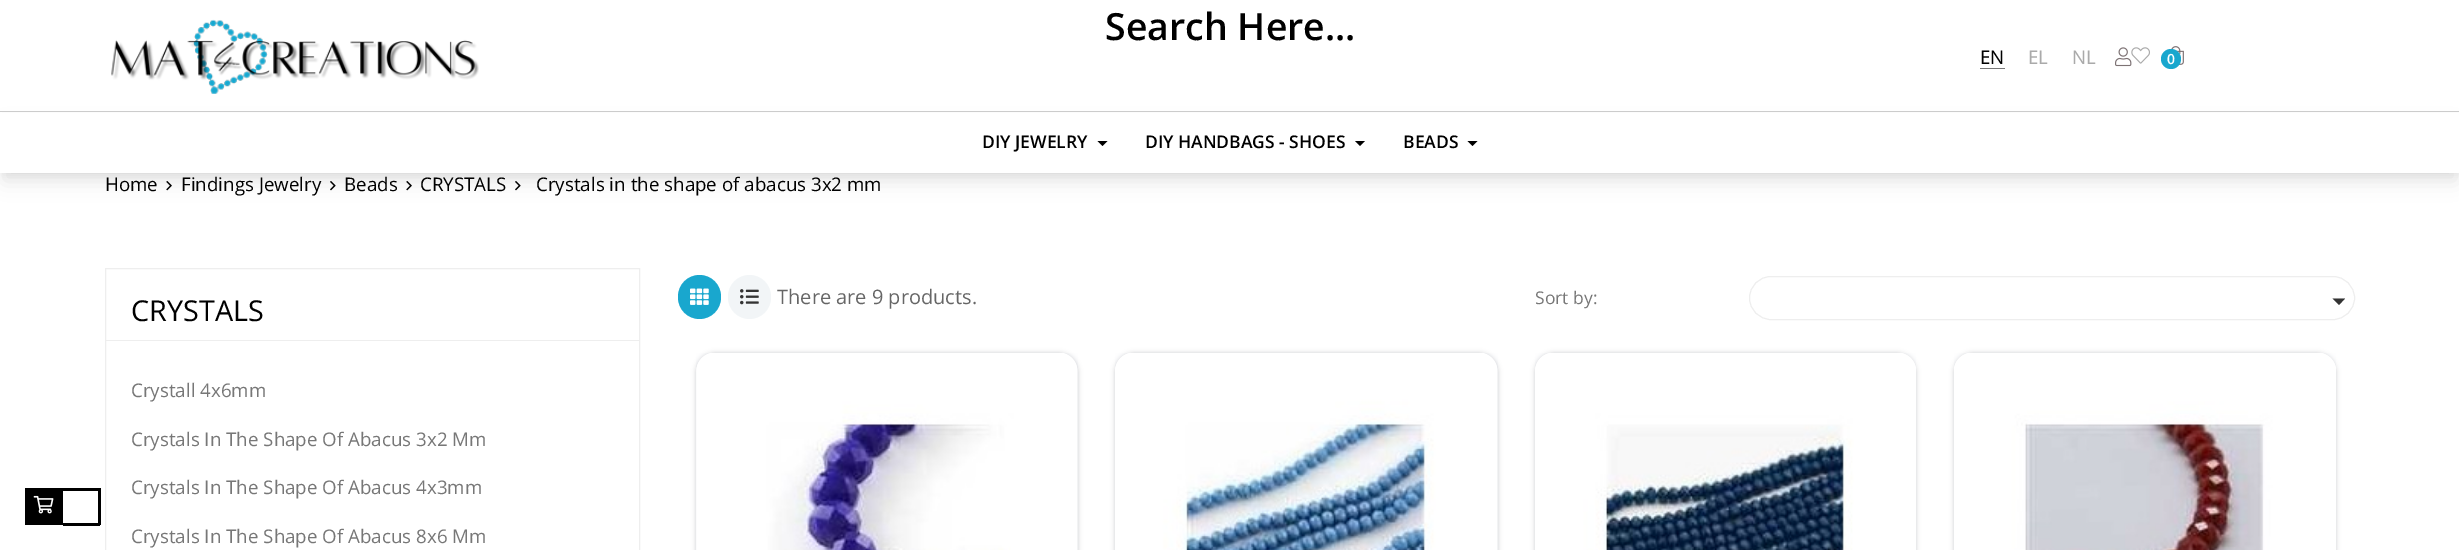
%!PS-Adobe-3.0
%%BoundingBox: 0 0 2459 550
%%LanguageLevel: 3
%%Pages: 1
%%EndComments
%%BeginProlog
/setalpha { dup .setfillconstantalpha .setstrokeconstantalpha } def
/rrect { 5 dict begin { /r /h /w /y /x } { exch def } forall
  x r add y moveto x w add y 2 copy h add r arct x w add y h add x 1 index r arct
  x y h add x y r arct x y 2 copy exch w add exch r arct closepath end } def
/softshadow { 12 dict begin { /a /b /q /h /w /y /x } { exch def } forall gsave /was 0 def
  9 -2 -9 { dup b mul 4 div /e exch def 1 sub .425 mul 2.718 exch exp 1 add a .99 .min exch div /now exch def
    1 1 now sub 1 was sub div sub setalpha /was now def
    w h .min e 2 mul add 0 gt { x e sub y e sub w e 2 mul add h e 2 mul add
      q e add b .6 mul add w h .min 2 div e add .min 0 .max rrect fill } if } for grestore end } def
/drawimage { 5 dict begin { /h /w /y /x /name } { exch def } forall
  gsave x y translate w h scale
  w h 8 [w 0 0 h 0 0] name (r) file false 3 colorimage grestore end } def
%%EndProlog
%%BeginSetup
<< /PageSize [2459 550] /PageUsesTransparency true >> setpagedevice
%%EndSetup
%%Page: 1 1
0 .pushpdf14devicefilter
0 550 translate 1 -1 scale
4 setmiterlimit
1 setgray
0 0 2459 550 rectfill
0 setgray
25 488 38 37 rectfill
(images/1.raw) 33 495 21 19 drawimage
63 488 37 3 rectfill
98 488 3 37 rectfill
63 523 37 3 rectfill
(images/2.raw) 111 19 368 75 drawimage
0.467 setgray
1980 68 25 1 rectfill
(images/4.raw) 2131 47 19 17 drawimage
(images/3.raw) 2115 47 17 20 drawimage
(images/5.raw) 2171 46 13 19 drawimage
0.098 0.655 0.808 setrgbcolor
newpath 2171 59 10 0 360 arc closepath fill
0 setgray
3 119 2455 56 0 4 0.05 softshadow
4 128 2452 53 0 9.5 0.1 softshadow
1 setgray
0 113 2459 60 rectfill
0.8 setgray
0 111 2459 1 rectfill
0 setgray
newpath 1097.5 141 moveto 1107.5 141 lineto 1102.5 146 lineto closepath fill
newpath 1355 141 moveto 1365 141 lineto 1360 146 lineto closepath fill
newpath 1467.5 141 moveto 1477.5 141 lineto 1472.5 146 lineto closepath fill
(images/6.raw) 166 181 6 10 drawimage
(images/7.raw) 330 181 6 10 drawimage
(images/6.raw) 406 181 6 10 drawimage
(images/7.raw) 515 181 6 10 drawimage
0.933 setgray
105.5 268.5 534 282 rectstroke
106 340 533 1 rectfill
0.098 0.655 0.808 setrgbcolor
678 275 43 44 21.5 rrect fill
(images/8.raw) 690 288 19 17 drawimage
0.949 0.961 0.969 setrgbcolor
728 275 43 44 21.5 rrect fill
(images/9.raw) 740 289 19 16 drawimage
0.933 setgray
1749.5 276.5 605 43 21.5 rrect stroke
0.2 setgray
newpath 2332.5 298.5 moveto 2345 298.5 lineto 2339 305 lineto closepath fill
0.263 0.278 0.333 setrgbcolor
696 353 382 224 19 2.5 0.27 softshadow
(images/10.raw) 696 353 382 197 drawimage
1115 353 383 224 19 2.5 0.27 softshadow
(images/11.raw) 1115 353 383 197 drawimage
1535 353 381 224 19 2.5 0.27 softshadow
(images/12.raw) 1535 353 381 197 drawimage
1954 353 382 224 19 2.5 0.27 softshadow
(images/13.raw) 1954 353 382 197 drawimage
/OpenSans-SemiBold [37.5 0 0 -37.5 0 0] selectfont
0 setgray
1105 40 moveto (Search Here...) show
/OpenSans-Regular [18.75 0 0 -18.75 0 0] selectfont
1980 64 moveto (EN) show
0.667 setgray
2028 64 moveto (EL) show
2072 64 moveto (NL) show
/OpenSans-SemiBold [14 0 0 -14 0 0] selectfont
1 setgray
2167 64 moveto (0) show
/OpenSans-SemiBold [17.5 0 0 -17.5 0 0] selectfont
0 setgray
982 148 moveto (DIY JEWELRY) show
1145 148 moveto (DIY HANDBAGS - SHOES) show
1403 148 moveto (BEADS) show
/OpenSans-Regular [18.75 0 0 -18.75 0 0] selectfont
105 191 moveto (Home) show
181 191 moveto (Findings Jewelry) show
344 191 moveto (Beads) show
420 191 moveto (CRYSTALS) show
536 191 moveto (Crystals in the shape of abacus 3x2 mm) show
/OpenSans-Regular [28.75 0 0 -28.75 0 0] selectfont
131 321 moveto (CRYSTALS) show
/OpenSans-Regular [18.75 0 0 -18.75 0 0] selectfont
0.467 setgray
131 397 moveto (Crystall 4x6mm) show
131 446 moveto (Crystals In The Shape Of Abacus 3x2 Mm) show
131 494 moveto (Crystals In The Shape Of Abacus 4x3mm) show
131 543 moveto (Crystals In The Shape Of Abacus 8x6 Mm) show
/OpenSans-Regular [20 0 0 -20 0 0] selectfont
0.4 setgray
777 304 moveto (There are 9 products.) show
/OpenSans-Regular [17.5 0 0 -17.5 0 0] selectfont
0.467 setgray
1535 304 moveto (Sort by:) show
.poppdf14devicefilter showpage
%%EOF
